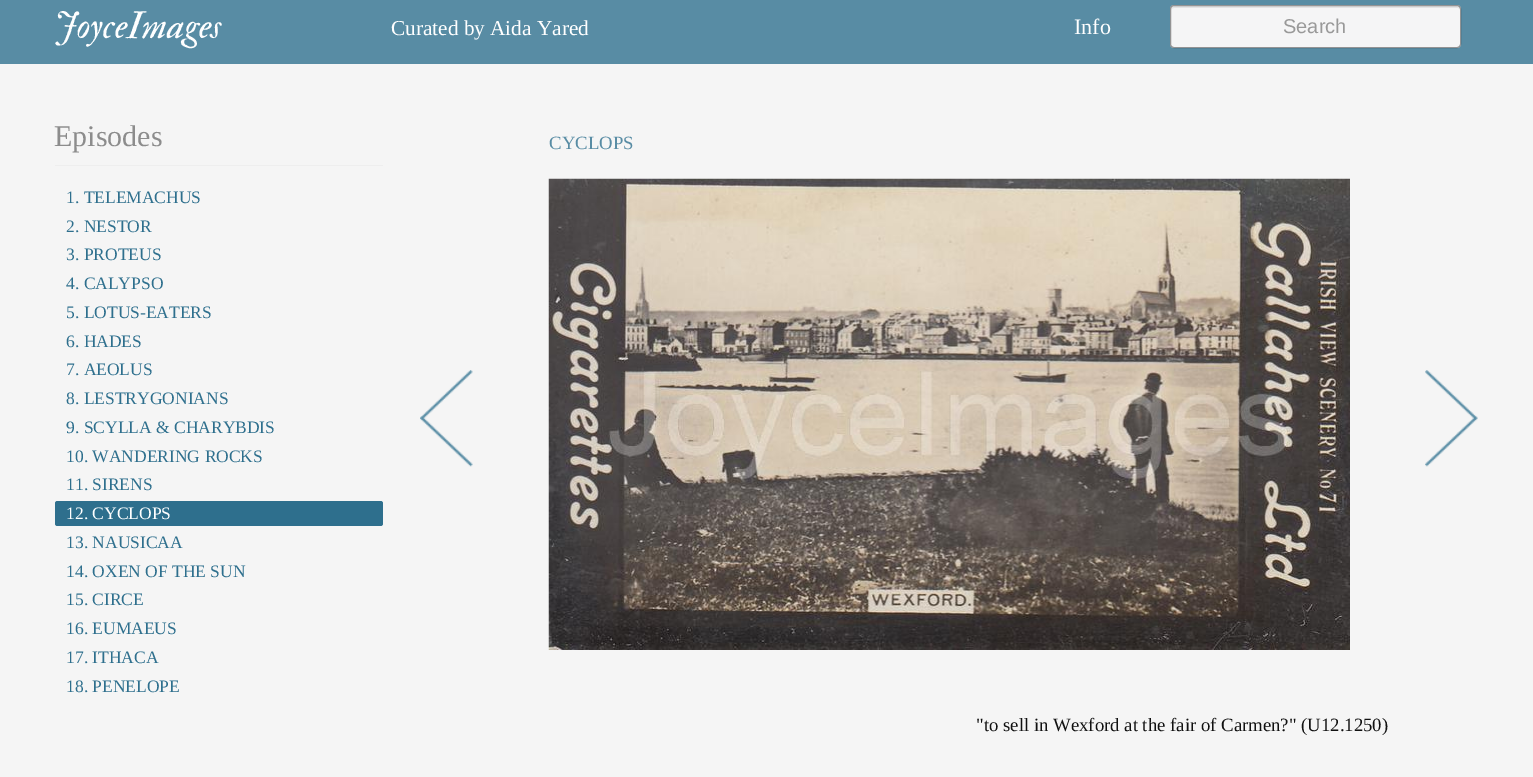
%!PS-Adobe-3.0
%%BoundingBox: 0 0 1533 777
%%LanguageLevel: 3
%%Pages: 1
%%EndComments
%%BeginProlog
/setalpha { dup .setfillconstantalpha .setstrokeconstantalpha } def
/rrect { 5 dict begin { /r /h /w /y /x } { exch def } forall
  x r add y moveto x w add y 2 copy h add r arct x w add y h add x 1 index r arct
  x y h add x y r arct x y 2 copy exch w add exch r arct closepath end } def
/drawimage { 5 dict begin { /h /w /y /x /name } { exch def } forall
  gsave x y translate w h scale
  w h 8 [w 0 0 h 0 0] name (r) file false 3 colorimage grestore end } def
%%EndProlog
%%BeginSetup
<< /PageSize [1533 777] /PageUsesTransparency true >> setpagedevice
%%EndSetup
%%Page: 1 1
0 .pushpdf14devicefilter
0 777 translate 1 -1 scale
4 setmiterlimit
0.961 setgray
0 0 1533 777 rectfill
0.345 0.549 0.643 setrgbcolor
0 0 1533 64 rectfill
0.961 0.961 0.965 setrgbcolor
1170 5 291 43 4 rrect fill
0.89 0.89 0.894 setrgbcolor
newpath 1174 8 moveto 1458 8 lineto 1459 8 1460 9 1460 10 curveto 1460 8 1460 6 1458 6 curveto 1174 6 lineto 1171 6 1171 8 1171 10 curveto 1171 9 1172 8 1174 8 curveto closepath fill
0.5 setalpha
0.196 setgray
1170.5 5.5 290 42 3.5 rrect stroke
1 setalpha
0.933 setgray
55 165 328 1 rectfill
0.18 0.435 0.553 setrgbcolor
55 501 328 25 2.5 rrect fill
(images/1.raw) 420 370 53 97 drawimage
(images/2.raw) 548 178 802 472 drawimage
(images/3.raw) 1425 370 53 97 drawimage
/IMFELLDoublePica-Italic [37.5 0 0 -37.5 0 0] selectfont
1 setgray
54 38 moveto (JoyceImages) show
/LiberationSerif-Regular [21.25 0 0 -21.25 0 0] selectfont
391 35 moveto (Curated by Aida Yared) show
/LiberationSerif-Regular [22 0 0 -22 0 0] selectfont
1074 34 moveto (Info) show
/LiberationSans-Regular [20 0 0 -20 0 0] selectfont
0.6 setgray
1283 33 moveto (Search) show
/LiberationSerif-Regular [30 0 0 -30 0 0] selectfont
0.549 setgray
54 146 moveto (Episodes) show
/LiberationSerif-Regular [17.5 0 0 -17.5 0 0] selectfont
0.18 0.435 0.553 setrgbcolor
66 203 moveto (1. TELEMACHUS) show
66 232 moveto (2. NESTOR) show
66 260 moveto (3. PROTEUS) show
66 289 moveto (4. CALYPSO) show
66 318 moveto (5. LOTUS-EATERS) show
66 347 moveto (6. HADES) show
66 375 moveto (7. AEOLUS) show
66 404 moveto (8. LESTRYGONIANS) show
66 433 moveto (9. SCYLLA & CHARYBDIS) show
66 462 moveto (10. WANDERING ROCKS) show
66 490 moveto (11. SIRENS) show
1 setgray
66 519 moveto (12. CYCLOPS) show
0.18 0.435 0.553 setrgbcolor
66 548 moveto (13. NAUSICAA) show
66 577 moveto (14. OXEN OF THE SUN) show
66 605 moveto (15. CIRCE) show
66 634 moveto (16. EUMAEUS) show
66 663 moveto (17. ITHACA) show
66 692 moveto (18. PENELOPE) show
/LiberationSerif-Regular [18.75 0 0 -18.75 0 0] selectfont
0.345 0.549 0.643 setrgbcolor
549 149 moveto (CYCLOPS) show
0.067 setgray
976 731 moveto ("to sell in Wexford at the fair of Carmen?" \(U12.1250\)) show
.poppdf14devicefilter showpage
%%EOF
